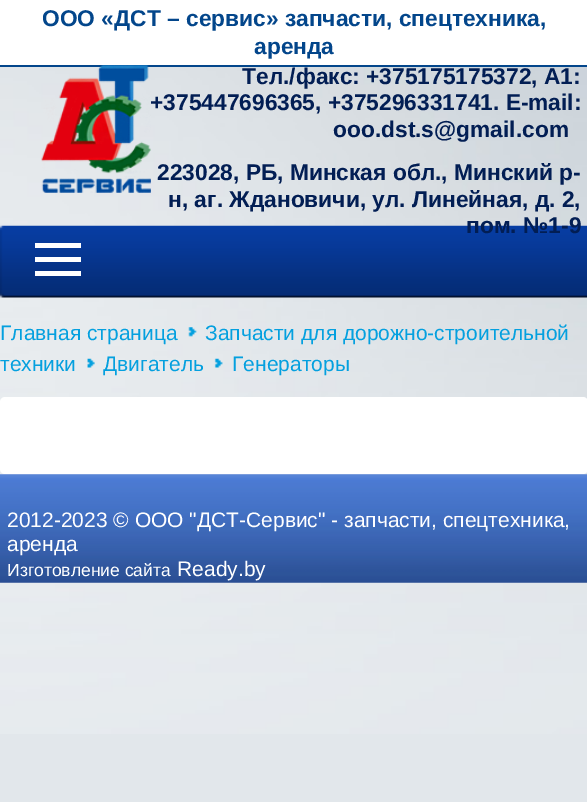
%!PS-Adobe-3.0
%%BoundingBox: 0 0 587 802
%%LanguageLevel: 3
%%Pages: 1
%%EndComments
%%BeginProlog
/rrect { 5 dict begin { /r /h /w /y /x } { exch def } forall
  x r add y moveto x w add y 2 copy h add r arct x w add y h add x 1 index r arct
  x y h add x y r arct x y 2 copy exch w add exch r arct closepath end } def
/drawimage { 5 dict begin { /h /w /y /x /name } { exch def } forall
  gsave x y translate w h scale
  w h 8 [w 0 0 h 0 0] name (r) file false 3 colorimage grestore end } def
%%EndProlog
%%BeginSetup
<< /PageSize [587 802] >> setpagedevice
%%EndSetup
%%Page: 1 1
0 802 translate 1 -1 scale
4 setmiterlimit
0.886 0.906 0.922 setrgbcolor
0 0 587 802 rectfill
(images/1.raw) 0 67 587 667 drawimage
1 setgray
0 0 587 65 rectfill
0.012 0.275 0.545 setrgbcolor
0 65 587 2 rectfill
(images/2.raw) 41 65 110 128 drawimage
(images/3.raw) 0 225 587 73 drawimage
1 setgray
35 257 46 5 rectfill
35 243 46 5 rectfill
35 271 46 5 rectfill
(images/4.raw) 188 327 9 10 drawimage
(images/5.raw) 87 358 8 10 drawimage
(images/6.raw) 214 358 9 10 drawimage
0 397 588 77 5 rrect fill
(images/7.raw) 0 474 587 109 drawimage
/LiberationSans-Bold [22.75 0 0 -22.75 0 0] selectfont
0.012 0.275 0.545 setrgbcolor
42 26 moveto (ООО «ДСТ – сервис» запчасти, спецтехника,) show
254 54 moveto (аренда) show
0.008 0.118 0.329 setrgbcolor
242 84 moveto (Тел./факс: +375175175372, А1:) show
150 110 moveto (+375447696365, +375296331741. E-mail:) show
333 137 moveto (ooo.dst.s@gmail.com) show
157 180 moveto (223028, РБ, Минская обл., Минский р-) show
168 207 moveto (н, аг. Ждановичи, ул. Линейная, д. 2,) show
466 233 moveto (пом. №1-9) show
/LiberationSans-Regular [21 0 0 -21 0 0] selectfont
0.016 0.627 0.875 setrgbcolor
0 340 moveto (Главная страница) show
205 340 moveto (Запчасти для дорожно-строительной) show
0 371 moveto (техники) show
103 371 moveto (Двигатель) show
232 371 moveto (Генераторы) show
1 setgray
7 527 moveto (2012-2023 © ООО "ДСТ-Сервис" - запчасти, спецтехника,) show
7 551 moveto (аренда) show
/LiberationSans-Regular [17.5 0 0 -17.5 0 0] selectfont
7 576 moveto (Изготовление сайта) show
/LiberationSans-Regular [21 0 0 -21 0 0] selectfont
177 576 moveto (Ready.by) show
showpage
%%EOF
